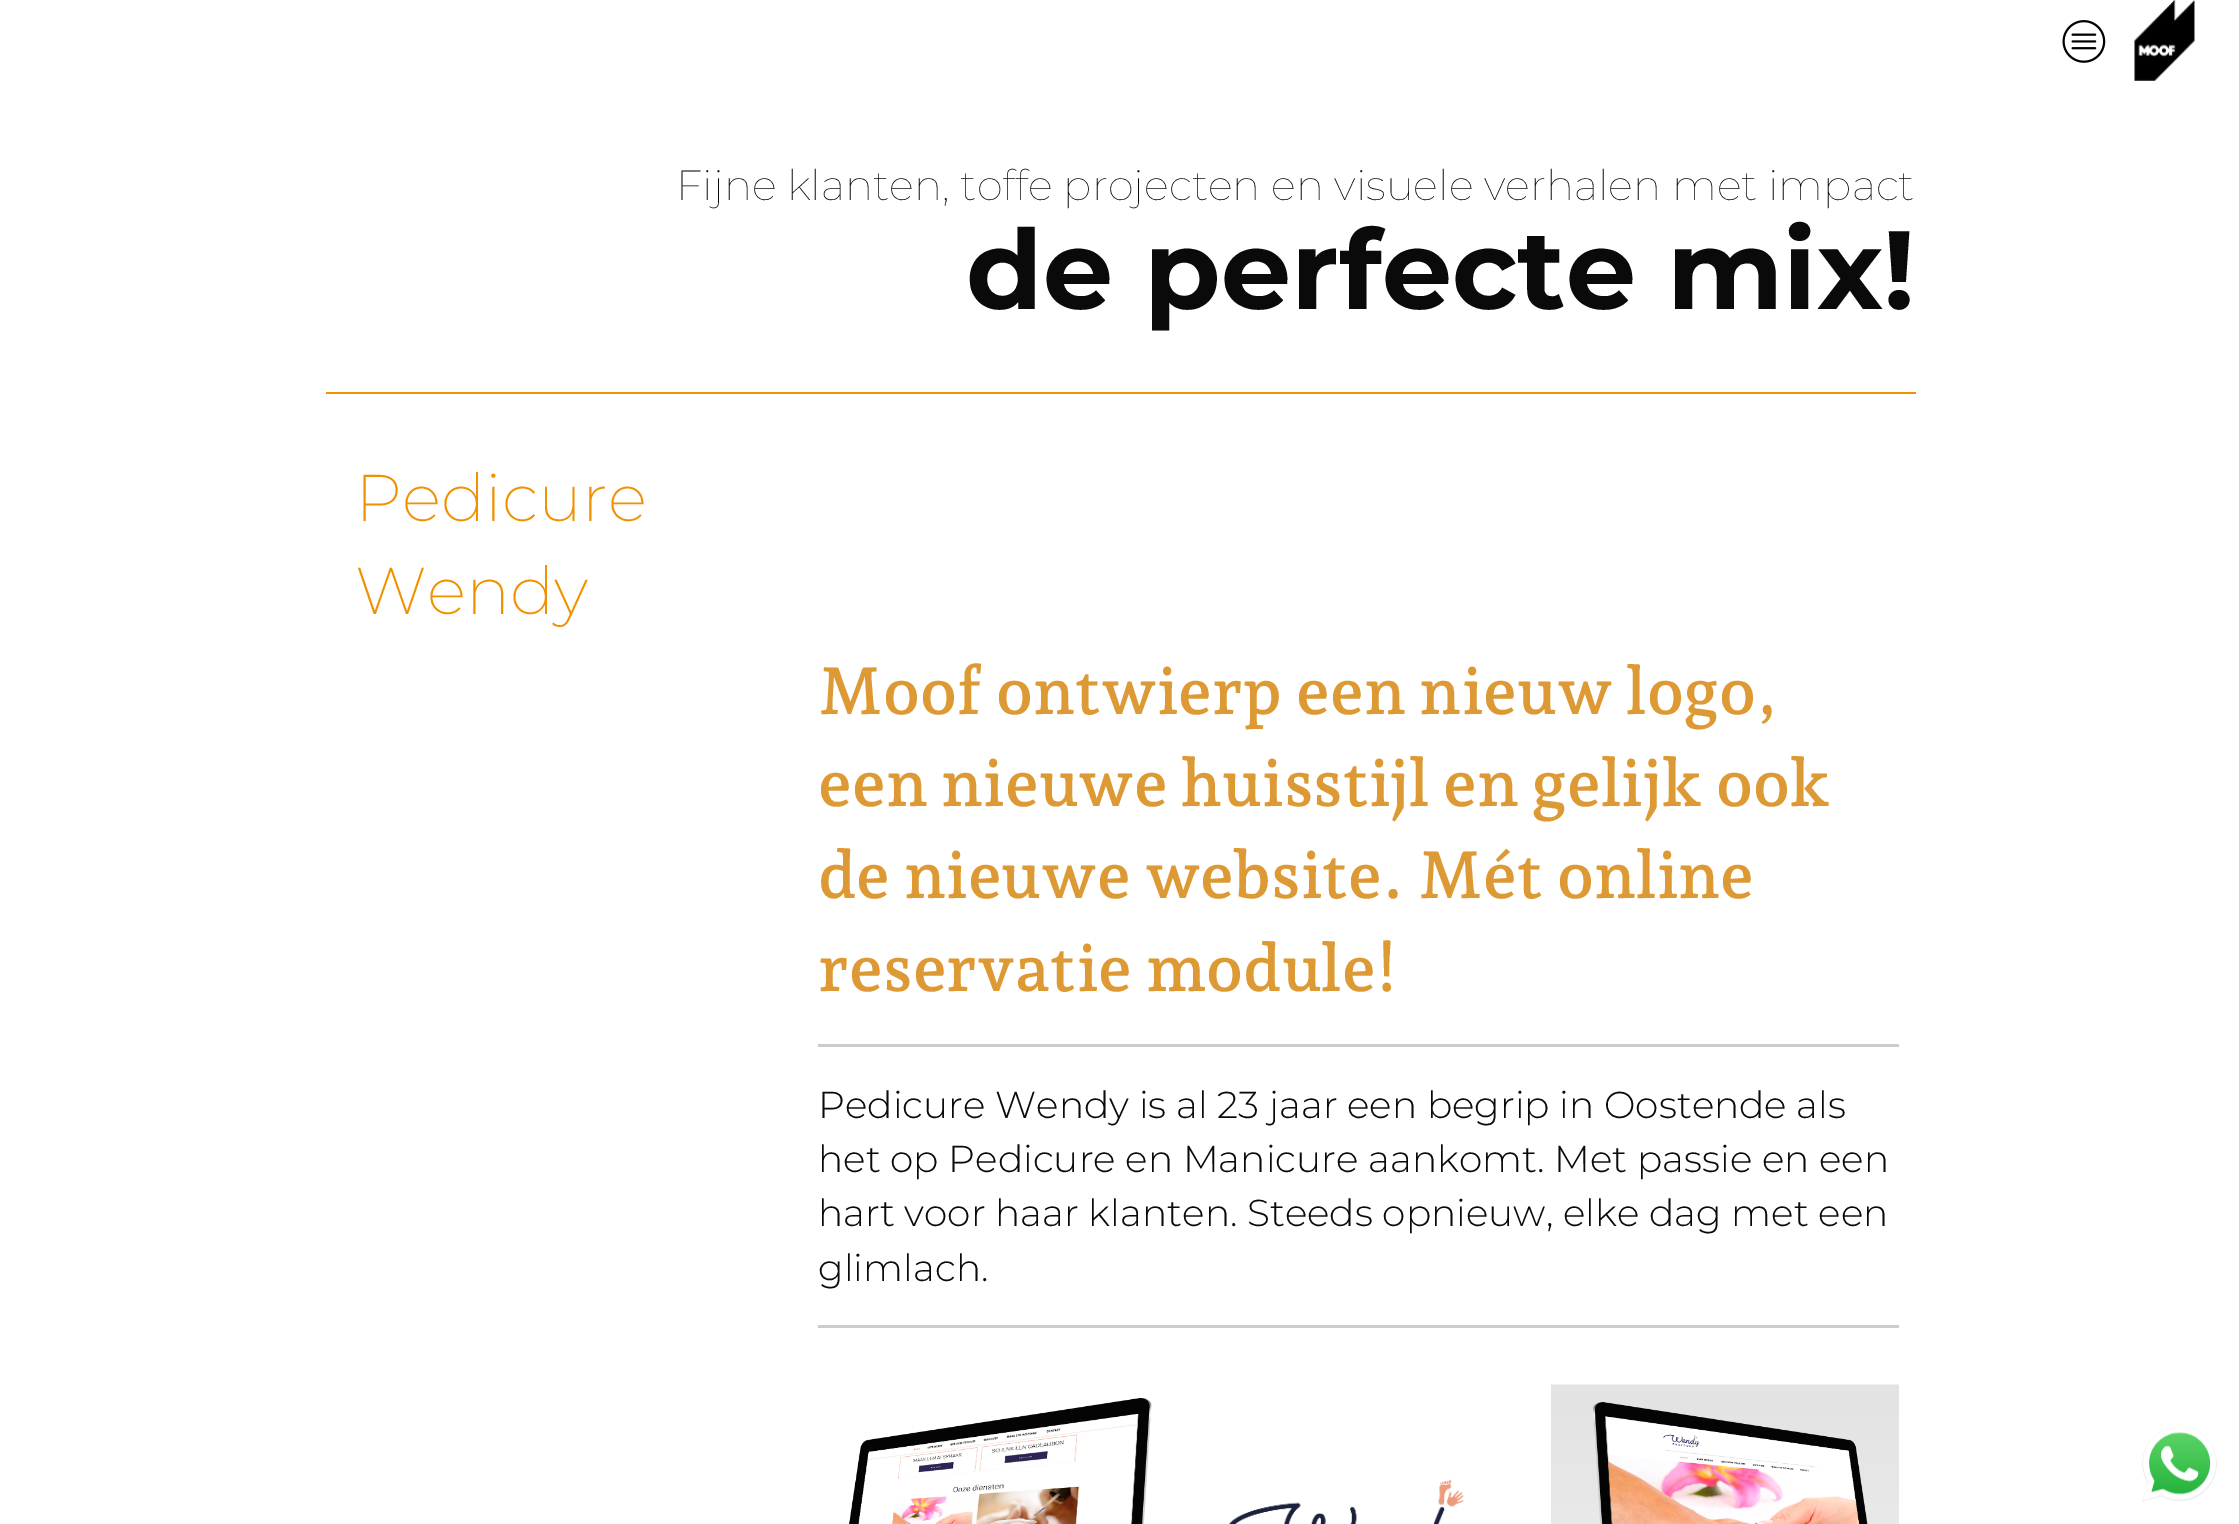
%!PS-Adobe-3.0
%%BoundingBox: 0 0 2239 1524
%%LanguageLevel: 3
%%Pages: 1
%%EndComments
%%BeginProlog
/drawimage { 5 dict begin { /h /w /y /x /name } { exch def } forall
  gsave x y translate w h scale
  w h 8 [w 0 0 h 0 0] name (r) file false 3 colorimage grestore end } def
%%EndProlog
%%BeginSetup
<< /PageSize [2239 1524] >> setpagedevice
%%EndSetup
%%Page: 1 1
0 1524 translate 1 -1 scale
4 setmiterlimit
1 setgray
0 0 2239 1524 rectfill
(images/1.raw) 2062 20 44 43 drawimage
(images/2.raw) 2134 0 61 81 drawimage
0.949 0.569 0 setrgbcolor
326 392 1590 2 rectfill
0.8 setgray
818 1044 1081 3 rectfill
818 1325 1081 3 rectfill
(images/3.raw) 849 1398 303 126 drawimage
(images/4.raw) 1228 1479 236 45 drawimage
(images/5.raw) 1551 1384 348 140 drawimage
(images/6.raw) 2142 1426 75 76 drawimage
/Montserrat-Thin [42 0 0 -42 0 0] selectfont
0.039 setgray
676 200 moveto (Fijne klanten, toffe projecten en visuele verhalen met impact) show
/Montserrat-Bold [111 0 0 -111 0 0] selectfont
966 309 moveto (de perfecte mix!) show
/Montserrat-ExtraLight [66 0 0 -66 0 0] selectfont
0.949 0.569 0 setrgbcolor
355 521 moveto (Pedicure) show
355 614 moveto (Wendy) show
/AndadaPro-SemiBold [66 0 0 -66 0 0] selectfont
0.867 0.6 0.2 setrgbcolor
818 714 moveto (Moof ontwierp een nieuw logo,) show
818 806 moveto -0.5 0 32 (een nieuwe huisstijl en gelijk ook) widthshow
818 898 moveto (de nieuwe website. Mét online) show
818 991 moveto (reservatie module!) show
/Montserrat-Light [37.5 0 0 -37.5 0 0] selectfont
0.039 setgray
818 1118 moveto (Pedicure Wendy is al 23 jaar een begrip in Oostende als) show
818 1172 moveto (het op Pedicure en Manicure aankomt. Met passie en een) show
818 1226 moveto (hart voor haar klanten. Steeds opnieuw, elke dag met een) show
818 1281 moveto (glimlach.) show
showpage
%%EOF
